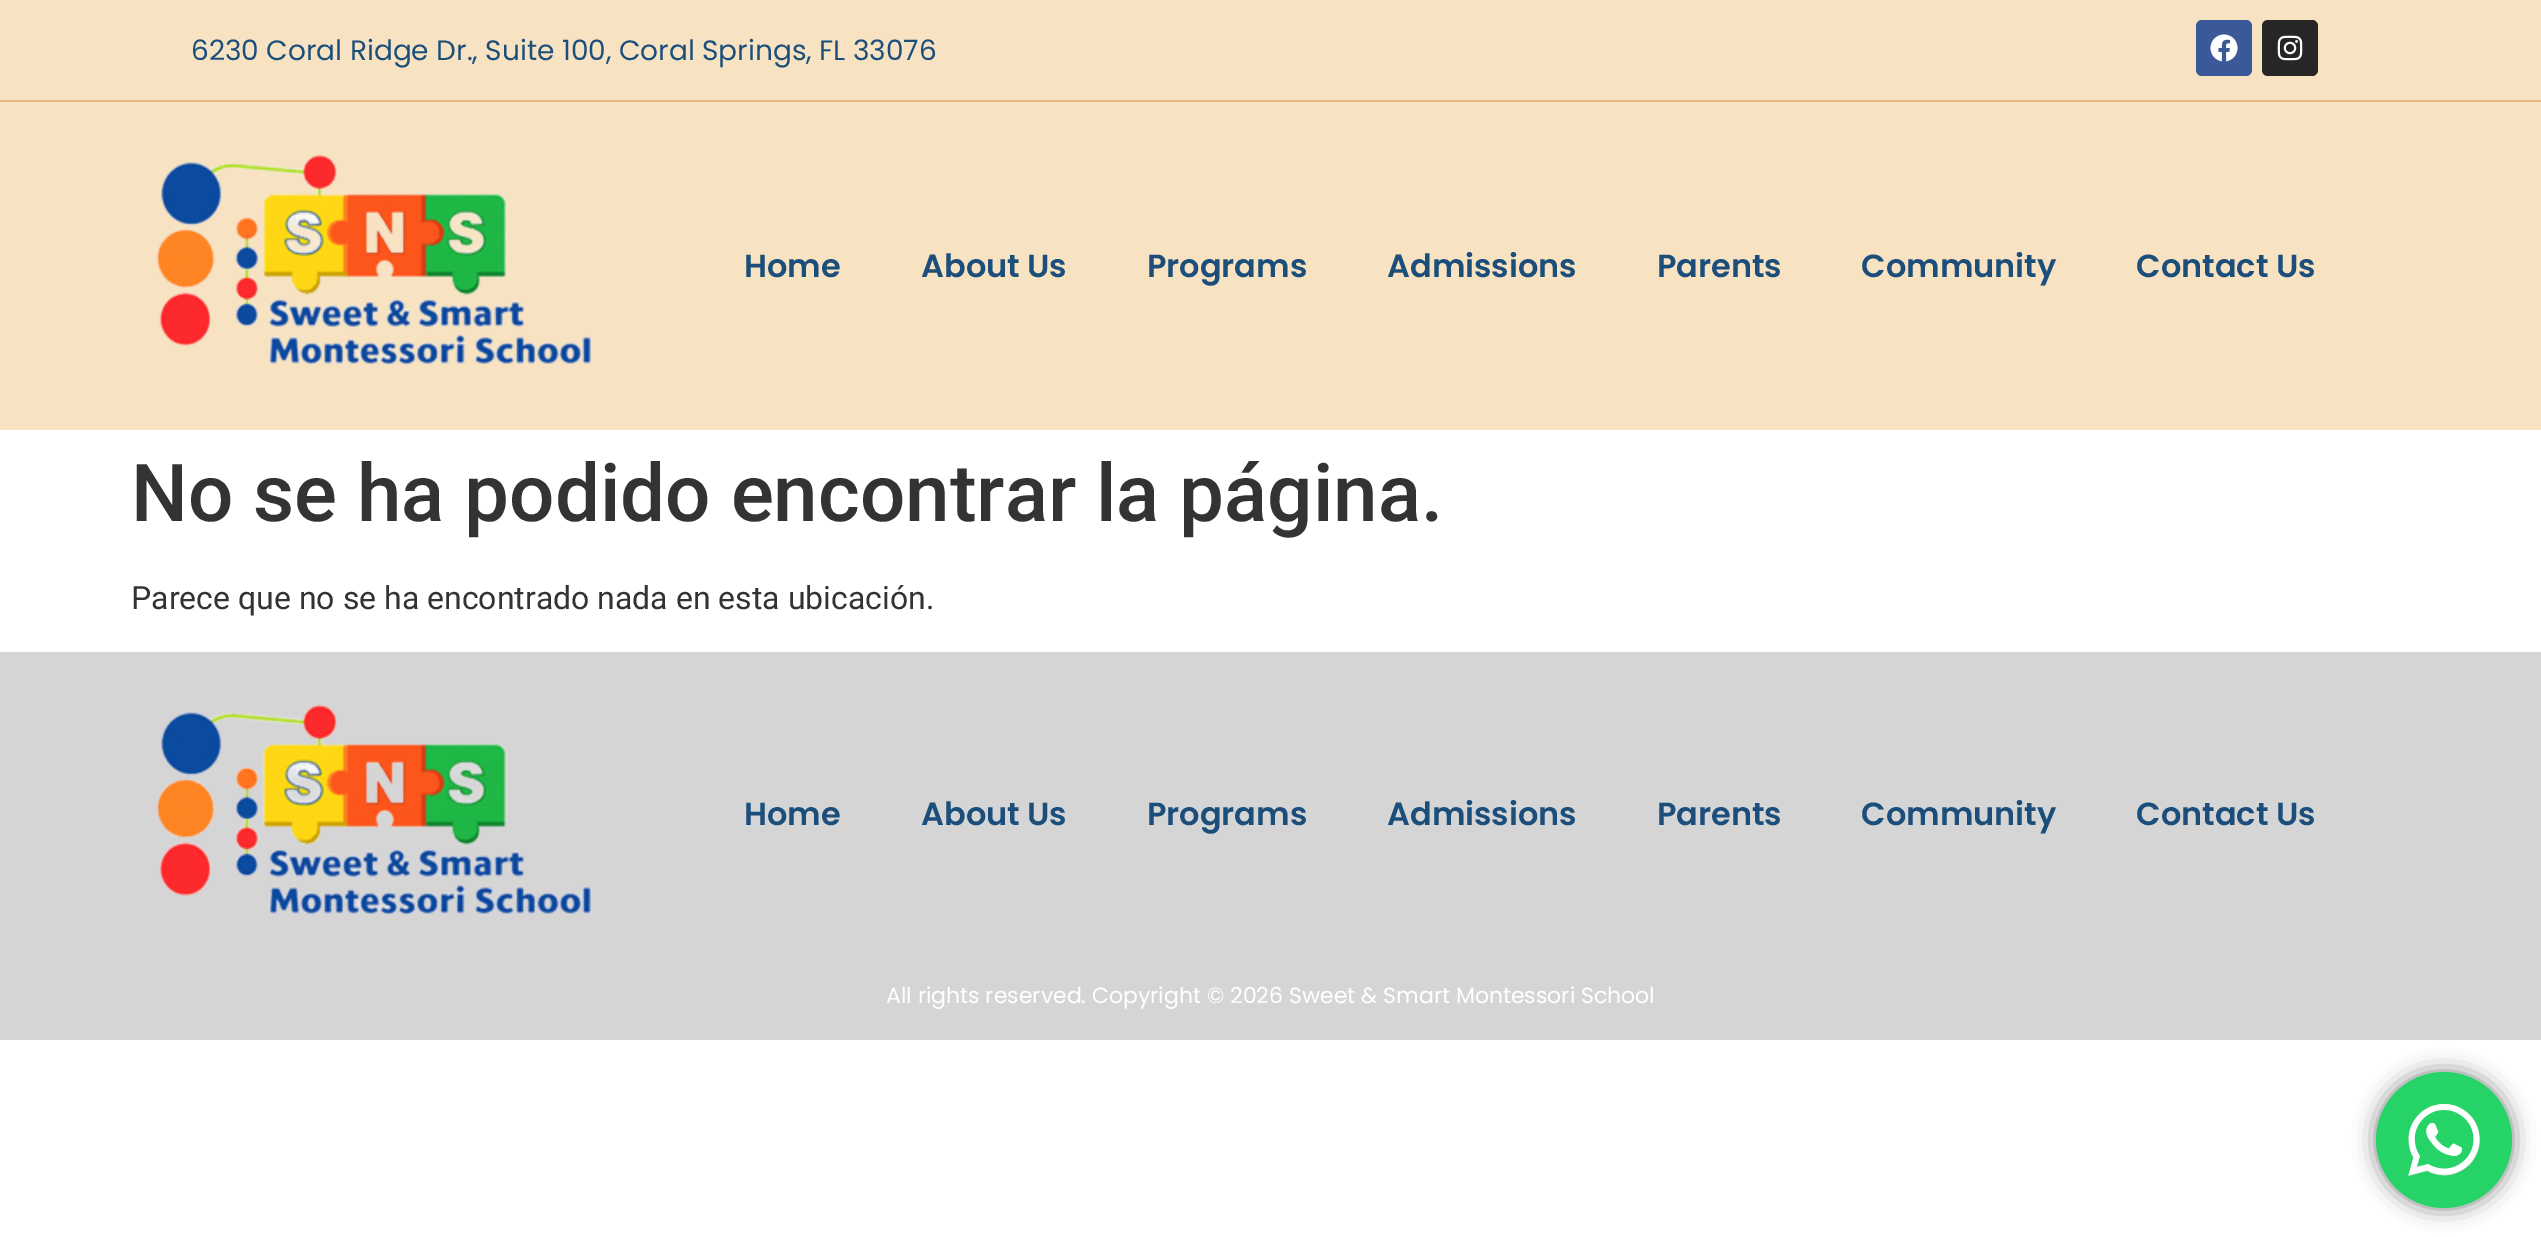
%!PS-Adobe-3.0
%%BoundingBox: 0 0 2541 1237
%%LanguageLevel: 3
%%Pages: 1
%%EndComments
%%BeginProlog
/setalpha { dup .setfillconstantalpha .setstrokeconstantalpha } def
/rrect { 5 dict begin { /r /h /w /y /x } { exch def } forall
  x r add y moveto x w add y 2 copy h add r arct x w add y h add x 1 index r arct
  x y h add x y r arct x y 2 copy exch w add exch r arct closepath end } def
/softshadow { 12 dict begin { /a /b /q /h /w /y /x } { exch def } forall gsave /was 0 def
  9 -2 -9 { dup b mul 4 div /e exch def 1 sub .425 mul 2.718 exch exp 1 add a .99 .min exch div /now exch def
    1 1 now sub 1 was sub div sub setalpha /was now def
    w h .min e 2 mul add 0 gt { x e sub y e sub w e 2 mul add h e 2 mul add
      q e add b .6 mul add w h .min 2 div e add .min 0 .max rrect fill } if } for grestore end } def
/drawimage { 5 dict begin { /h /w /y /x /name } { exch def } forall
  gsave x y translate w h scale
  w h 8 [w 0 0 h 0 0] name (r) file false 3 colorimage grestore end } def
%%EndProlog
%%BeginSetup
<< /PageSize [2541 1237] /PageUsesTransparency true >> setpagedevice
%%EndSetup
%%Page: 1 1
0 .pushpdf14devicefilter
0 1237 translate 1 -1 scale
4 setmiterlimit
1 setgray
0 0 2541 1237 rectfill
0.969 0.89 0.757 setrgbcolor
0 0 2541 100 rectfill
0.925 0.718 0.529 setrgbcolor
0 100 2541 2 rectfill
0.231 0.349 0.596 setrgbcolor
2196 20 56 56 6 rrect fill
(images/1.raw) 2210 34 28 28 drawimage
0.149 setgray
2262 20 56 56 6 rrect fill
(images/2.raw) 2277 35 26 26 drawimage
0.969 0.89 0.757 setrgbcolor
0 102 2541 328 rectfill
(images/3.raw) 156 154 436 211 drawimage
0.835 setgray
0 652 2541 388 rectfill
(images/4.raw) 156 704 436 211 drawimage
0 setgray
2376 1072 136 136 68 11 0.5 softshadow
0.145 0.827 0.4 setrgbcolor
newpath 2444 1140 68 0 360 arc closepath fill
(images/5.raw) 2408 1104 72 72 drawimage
/Poppins-Regular [28 0 0 -28 0 0] selectfont
0.106 0.306 0.482 setrgbcolor
191 60 moveto (6230 Coral Ridge Dr., Suite 100, Coral Springs, FL 33076) show
/Poppins-SemiBold [32 0 0 -32 0 0] selectfont
744 277 moveto (Home) show
921 277 moveto (About Us) show
1147 277 moveto (Programs) show
1387 277 moveto (Admissions) show
1657 277 moveto (Parents) show
1861 277 moveto (Community) show
2136 277 moveto (Contact Us) show
/Roboto-Medium [80 0 0 -80 0 0] selectfont
0.2 setgray
131 521 moveto (No se ha podido encontrar la página.) show
/Roboto-Regular [32 0 0 -32 0 0] selectfont
131 609 moveto (Parece que no se ha encontrado nada en esta ubicación.) show
/Poppins-SemiBold [32 0 0 -32 0 0] selectfont
0.106 0.306 0.482 setrgbcolor
744 825 moveto (Home) show
921 825 moveto (About Us) show
1147 825 moveto (Programs) show
1387 825 moveto (Admissions) show
1657 825 moveto (Parents) show
1861 825 moveto (Community) show
2136 825 moveto (Contact Us) show
/Poppins-Regular [22 0 0 -22 0 0] selectfont
1 setgray
886 1003 moveto (All rights reserved. Copyright © 2026 Sweet & Smart Montessori School) show
.poppdf14devicefilter showpage
%%EOF
